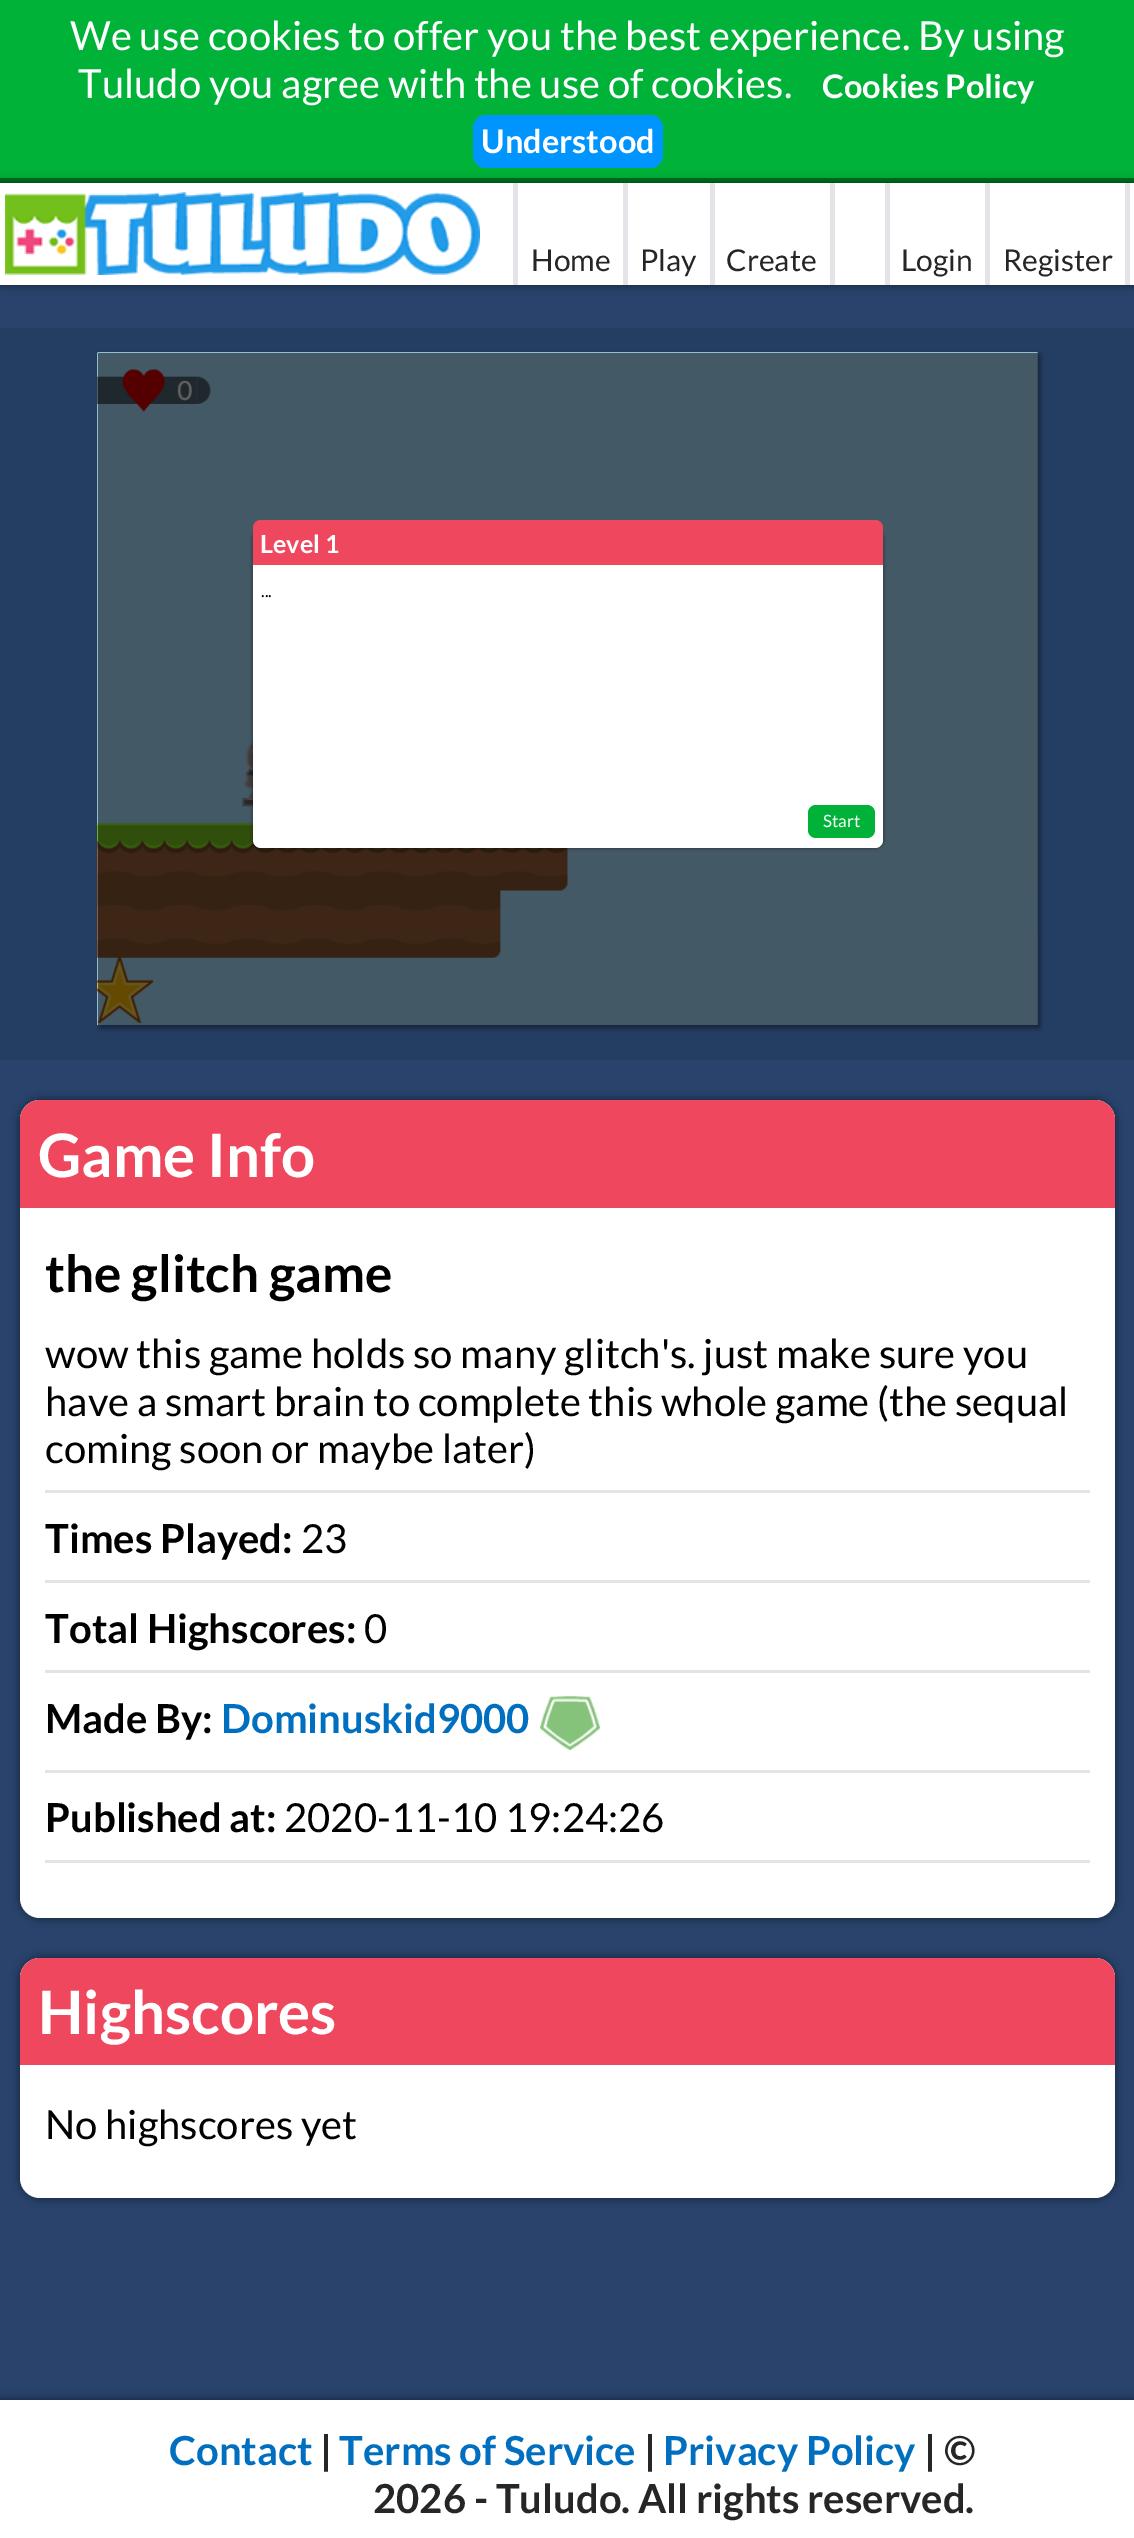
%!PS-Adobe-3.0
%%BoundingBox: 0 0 1134 2538
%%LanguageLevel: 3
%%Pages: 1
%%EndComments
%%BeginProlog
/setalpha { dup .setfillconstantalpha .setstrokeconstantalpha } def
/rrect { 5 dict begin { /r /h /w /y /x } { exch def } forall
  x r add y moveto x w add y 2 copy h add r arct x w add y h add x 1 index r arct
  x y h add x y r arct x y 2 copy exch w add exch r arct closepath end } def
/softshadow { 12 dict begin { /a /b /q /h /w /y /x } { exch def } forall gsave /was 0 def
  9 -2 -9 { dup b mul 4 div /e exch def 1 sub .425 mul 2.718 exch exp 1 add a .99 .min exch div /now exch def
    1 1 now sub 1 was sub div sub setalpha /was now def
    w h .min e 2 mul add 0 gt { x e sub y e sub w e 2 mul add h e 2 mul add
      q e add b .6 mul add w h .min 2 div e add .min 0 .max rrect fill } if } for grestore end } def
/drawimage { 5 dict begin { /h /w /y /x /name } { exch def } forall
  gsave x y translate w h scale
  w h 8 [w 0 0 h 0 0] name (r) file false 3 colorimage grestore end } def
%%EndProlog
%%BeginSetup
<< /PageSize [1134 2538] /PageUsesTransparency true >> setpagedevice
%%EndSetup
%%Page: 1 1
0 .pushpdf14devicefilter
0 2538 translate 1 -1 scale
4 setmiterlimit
0.161 0.263 0.427 setrgbcolor
0 0 1134 2538 rectfill
0 0.698 0.22 setrgbcolor
0 0 1134 178 rectfill
0 0.447 0.141 setrgbcolor
0 178 1134 5 rectfill
0 0.58 1 setrgbcolor
473 115 190 53 13 rrect fill
0 setgray
0 183 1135 102 0 5 0.5 softshadow
1 setgray
0 183 1134 102 rectfill
(images/1.raw) 5 191 475 84 drawimage
0.89 0.89 0.91 setrgbcolor
513 183 5 102 rectfill
623 183 5 102 rectfill
710 183 5 102 rectfill
830 183 5 102 rectfill
885 183 5 102 rectfill
985 183 5 102 rectfill
1125 183 5 102 rectfill
0.141 0.239 0.384 setrgbcolor
0 328 1134 732 rectfill
0 setgray
100 355 940 673 0 2.5 0.4 softshadow
(images/2.raw) 97 352 941 673 drawimage
(images/3.raw) 97 352 941 673 drawimage
0.6 setalpha
98 353 940 672 rectfill
1 setalpha
253 530 630 318 8 2 0.5 softshadow
1 setgray
253 530 630 318 8 rrect fill
0.937 0.278 0.365 setrgbcolor
newpath 261 520 moveto 875 520 lineto 879.5 520 883 523.5 883 528 curveto 883 565 lineto 253 565 lineto 253 528 lineto 253 523.5 256.5 520 261 520 curveto closepath fill
0 0.698 0.22 setrgbcolor
808 805 67 33 8 rrect fill
0 setgray
20 1100 1095 818 20 5 0.5 softshadow
1 setgray
20 1100 1095 818 20 rrect fill
0.937 0.278 0.365 setrgbcolor
newpath 40 1100 moveto 1095 1100 lineto 1106 1100 1115 1109 1115 1120 curveto 1115 1208 lineto 20 1208 lineto 20 1120 lineto 20 1109 29 1100 40 1100 curveto closepath fill
0.89 0.89 0.91 setrgbcolor
45 1490 1045 3 rectfill
45 1580 1045 3 rectfill
45 1670 1045 3 rectfill
(images/4.raw) 540 1695 60 55 drawimage
45 1770 1045 3 rectfill
45 1860 1045 3 rectfill
0 setgray
20 1958 1095 240 20 5 0.5 softshadow
1 setgray
20 1958 1095 240 20 rrect fill
0.937 0.278 0.365 setrgbcolor
newpath 40 1958 moveto 1095 1958 lineto 1106 1958 1115 1967 1115 1978 curveto 1115 2065 lineto 20 2065 lineto 20 1978 lineto 20 1967 29 1958 40 1958 curveto closepath fill
0 setgray
0 2400 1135 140 0 5 0.5 softshadow
1 setgray
0 2400 1134 138 rectfill
/Lato-Regular [40 0 0 -40 0 0] selectfont
70 50 moveto (We use cookies to offer you the best experience. By using) show
78 98 moveto (Tuludo you agree with the use of cookies.) show
/Lato-Bold [32.5 0 0 -32.5 0 0] selectfont
822 98 moveto (Cookies Policy) show
481 153 moveto (Understood) show
/Lato-Regular [30 0 0 -30 0 0] selectfont
0.149 setgray
531 271 moveto (Home) show
640 271 moveto (Play) show
726 271 moveto (Create) show
901 271 moveto (Login) show
1003 271 moveto (Register) show
/Lato-Bold [25 0 0 -25 0 0] selectfont
1 setgray
260 553 moveto (Level 1) show
/Lato-Regular [17 0 0 -17 0 0] selectfont
0 setgray
261 597 moveto (...) show
1 setgray
823 827 moveto (Start) show
/Lato-Bold [60 0 0 -60 0 0] selectfont
38 1177 moveto (Game Info) show
/Lato-Bold [51.25 0 0 -51.25 0 0] selectfont
0 setgray
45 1292 moveto (the glitch game) show
/Lato-Regular [40 0 0 -40 0 0] selectfont
45 1368 moveto (wow this game holds so many glitch's. just make sure you) show
45 1416 moveto (have a smart brain to complete this whole game \(the sequal) show
45 1463 moveto (coming soon or maybe later\)) show
/Lato-Bold [40 0 0 -40 0 0] selectfont
45 1553 moveto (Times Played:) show
/Lato-Regular [40 0 0 -40 0 0] selectfont
301 1553 moveto (23) show
/Lato-Bold [40 0 0 -40 0 0] selectfont
45 1643 moveto (Total Highscores:) show
/Lato-Regular [40 0 0 -40 0 0] selectfont
364 1643 moveto (0) show
/Lato-Bold [40 0 0 -40 0 0] selectfont
45 1733 moveto (Made By:) show
0 0.435 0.749 setrgbcolor
221 1733 moveto (Dominuskid9000) show
0 setgray
45 1832 moveto (Published at:) show
/Lato-Regular [40 0 0 -40 0 0] selectfont
284 1832 moveto (2020-11-10 19:24:26) show
/Lato-Bold [60 0 0 -60 0 0] selectfont
1 setgray
38 2034 moveto (Highscores) show
/Lato-Regular [40 0 0 -40 0 0] selectfont
0 setgray
45 2139 moveto (No highscores yet) show
/Lato-Bold [40 0 0 -40 0 0] selectfont
0 0.435 0.749 setrgbcolor
169 2465 moveto (Contact) show
0.149 setgray
320 2465 moveto (|) show
0 0.435 0.749 setrgbcolor
339 2465 moveto (Terms of Service) show
0.149 setgray
644 2465 moveto (|) show
0 0.435 0.749 setrgbcolor
663 2465 moveto (Privacy Policy) show
0.149 setgray
924 2465 moveto (| ©) show
373 2513 moveto (2026 - Tuludo. All rights reserved.) show
.poppdf14devicefilter showpage
%%EOF
